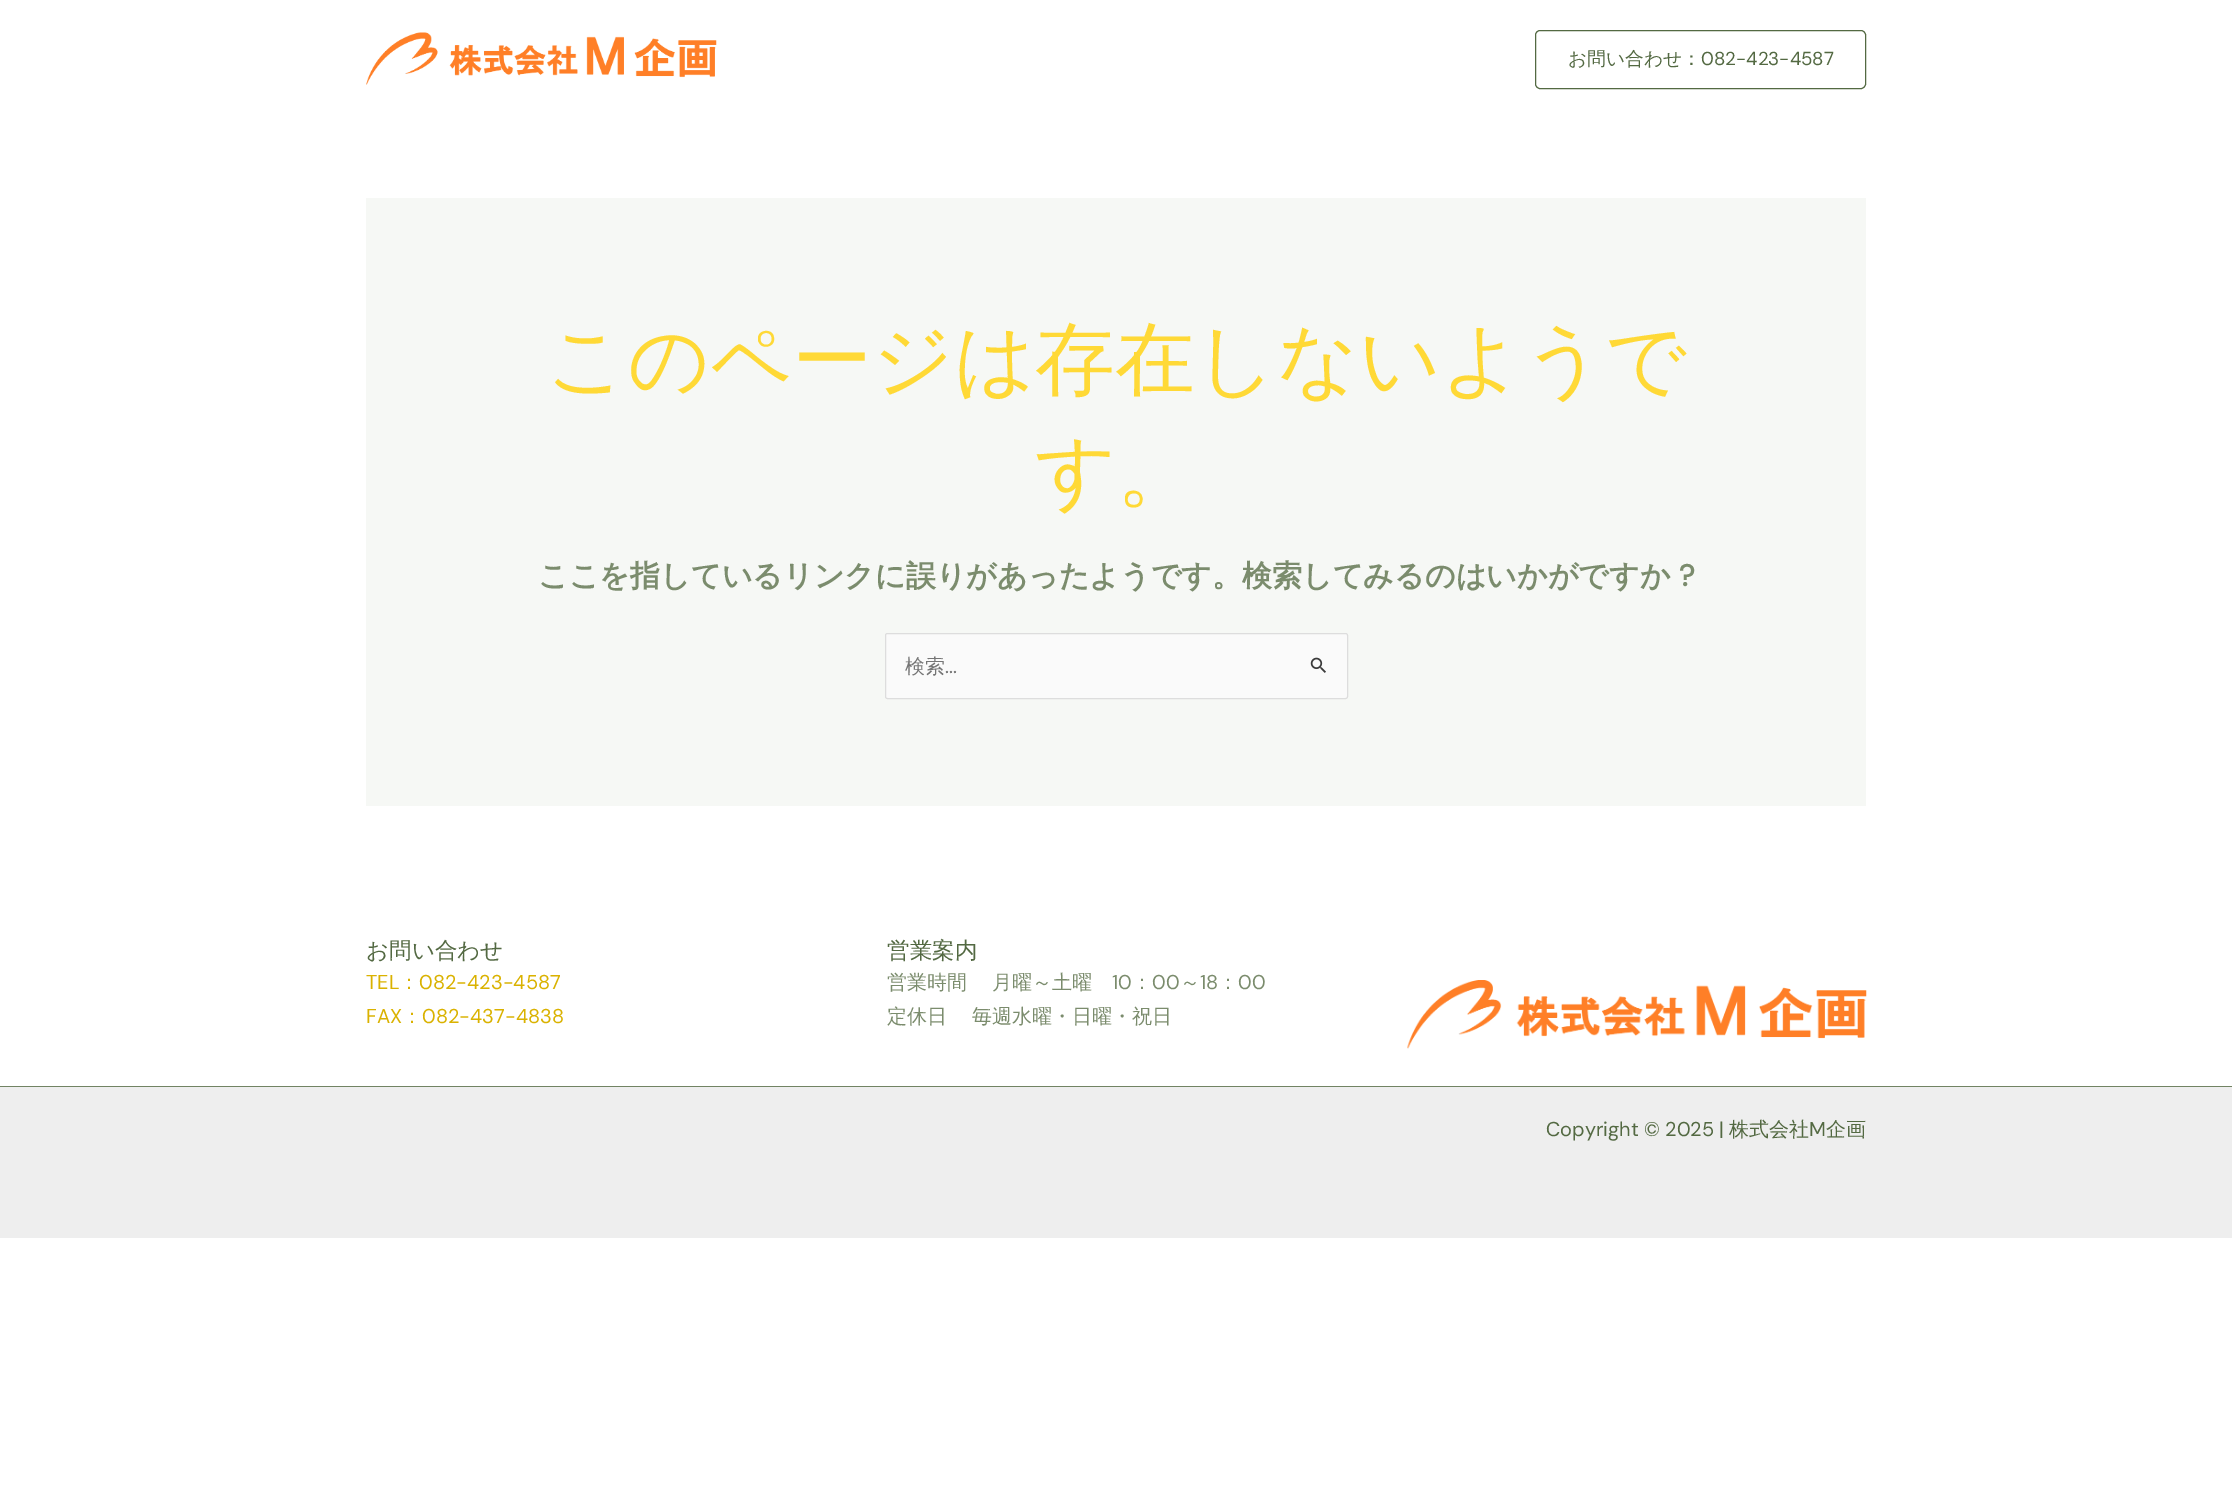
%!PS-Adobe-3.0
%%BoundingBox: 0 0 2232 1493
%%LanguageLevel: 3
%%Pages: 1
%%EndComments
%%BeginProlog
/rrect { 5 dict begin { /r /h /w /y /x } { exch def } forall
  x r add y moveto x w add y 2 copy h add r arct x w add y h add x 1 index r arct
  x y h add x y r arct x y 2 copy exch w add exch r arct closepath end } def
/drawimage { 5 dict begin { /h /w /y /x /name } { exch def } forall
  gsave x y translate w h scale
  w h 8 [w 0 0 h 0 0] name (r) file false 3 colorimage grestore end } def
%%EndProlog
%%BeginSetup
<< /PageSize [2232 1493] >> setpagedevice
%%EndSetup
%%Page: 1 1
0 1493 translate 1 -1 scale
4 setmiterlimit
1 setgray
0 0 2232 1493 rectfill
(images/1.raw) 366 32 351 53 drawimage
0.325 0.412 0.259 setrgbcolor
1535.5 30.5 330 58 4.5 rrect stroke
0.965 0.973 0.961 setrgbcolor
366 198 1500 608 rectfill
0.98 setgray
885.5 633.5 462 65 2 rrect gsave fill grestore
0.867 setgray
stroke
(images/2.raw) 1310 657 16 16 drawimage
(images/3.raw) 1407 980 460 69 drawimage
0.933 setgray
0 1087 2232 151 rectfill
0.443 0.514 0.388 setrgbcolor
0 1086 2232 1 rectfill
/WenQuanYiZenHei-Medium [18.75 0 0 -18.75 0 0] selectfont
0.325 0.412 0.259 setrgbcolor
1568 65 moveto (お問い合わせ：) show
/DMSans-Regular [18.75 0 0 -18.75 0 0] selectfont
1701 65 moveto (082-423-4587) show
/WenQuanYiZenHei-Medium [80 0 0 -80 0 0] selectfont
1 0.851 0.212 setrgbcolor
546 387 moveto (このページは存在しないようで) show
1035 499 moveto (す。) show
/WenQuanYiZenHei-Bold [30 0 0 -30 0 0] selectfont
0.482 0.549 0.427 setrgbcolor
538 586 moveto (ここを指しているリンクに誤りがあったようです。検索してみるのはいかがですか) show
/DMSans-Bold [30 0 0 -30 0 0] selectfont
1679 586 moveto (?) show
/WenQuanYiZenHei-Medium [20 0 0 -20 0 0] selectfont
0.459 setgray
905 673 moveto (検索) show
/DMSans-Regular [20 0 0 -20 0 0] selectfont
945 673 moveto (...) show
/WenQuanYiZenHei-Medium [22.5 0 0 -22.5 0 0] selectfont
0.325 0.412 0.259 setrgbcolor
366 958 moveto (お問い合わせ) show
/DMSans-Regular [20 0 0 -20 0 0] selectfont
0.855 0.698 0 setrgbcolor
366 989 moveto (TEL) show
/WenQuanYiZenHei-Medium [20 0 0 -20 0 0] selectfont
399 989 moveto (：) show
/DMSans-Regular [20 0 0 -20 0 0] selectfont
419 989 moveto (082-423-4587) show
366 1023 moveto (FAX) show
/WenQuanYiZenHei-Medium [20 0 0 -20 0 0] selectfont
402 1023 moveto (：) show
/DMSans-Regular [20 0 0 -20 0 0] selectfont
422 1023 moveto (082-437-4838) show
/WenQuanYiZenHei-Medium [22.5 0 0 -22.5 0 0] selectfont
0.325 0.412 0.259 setrgbcolor
887 958 moveto (営業案内) show
/WenQuanYiZenHei-Medium [20 0 0 -20 0 0] selectfont
0.482 0.549 0.427 setrgbcolor
887 989 moveto -1 0 32 (営業時間　 月曜～土曜) widthshow
/DMSans-Regular [20 0 0 -20 0 0] selectfont
1112 989 moveto (10) show
/WenQuanYiZenHei-Medium [20 0 0 -20 0 0] selectfont
1132 989 moveto (：) show
/DMSans-Regular [20 0 0 -20 0 0] selectfont
1152 989 moveto (00) show
/WenQuanYiZenHei-Medium [20 0 0 -20 0 0] selectfont
1180 989 moveto (～) show
/DMSans-Regular [20 0 0 -20 0 0] selectfont
1200 989 moveto (18) show
/WenQuanYiZenHei-Medium [20 0 0 -20 0 0] selectfont
1218 989 moveto (：) show
/DMSans-Regular [20 0 0 -20 0 0] selectfont
1238 989 moveto (00) show
/WenQuanYiZenHei-Medium [20 0 0 -20 0 0] selectfont
887 1023 moveto -1 0 32 (定休日　 毎週水曜・日曜・祝日) widthshow
/DMSans-Regular [20 0 0 -20 0 0] selectfont
0.325 0.412 0.259 setrgbcolor
1546 1136 moveto (Copyright © 2025 |) show
/WenQuanYiZenHei-Medium [20 0 0 -20 0 0] selectfont
1729 1136 moveto (株式会社) show
/DMSans-Regular [20 0 0 -20 0 0] selectfont
1809 1136 moveto (M) show
/WenQuanYiZenHei-Medium [20 0 0 -20 0 0] selectfont
1826 1136 moveto (企画) show
showpage
%%EOF
